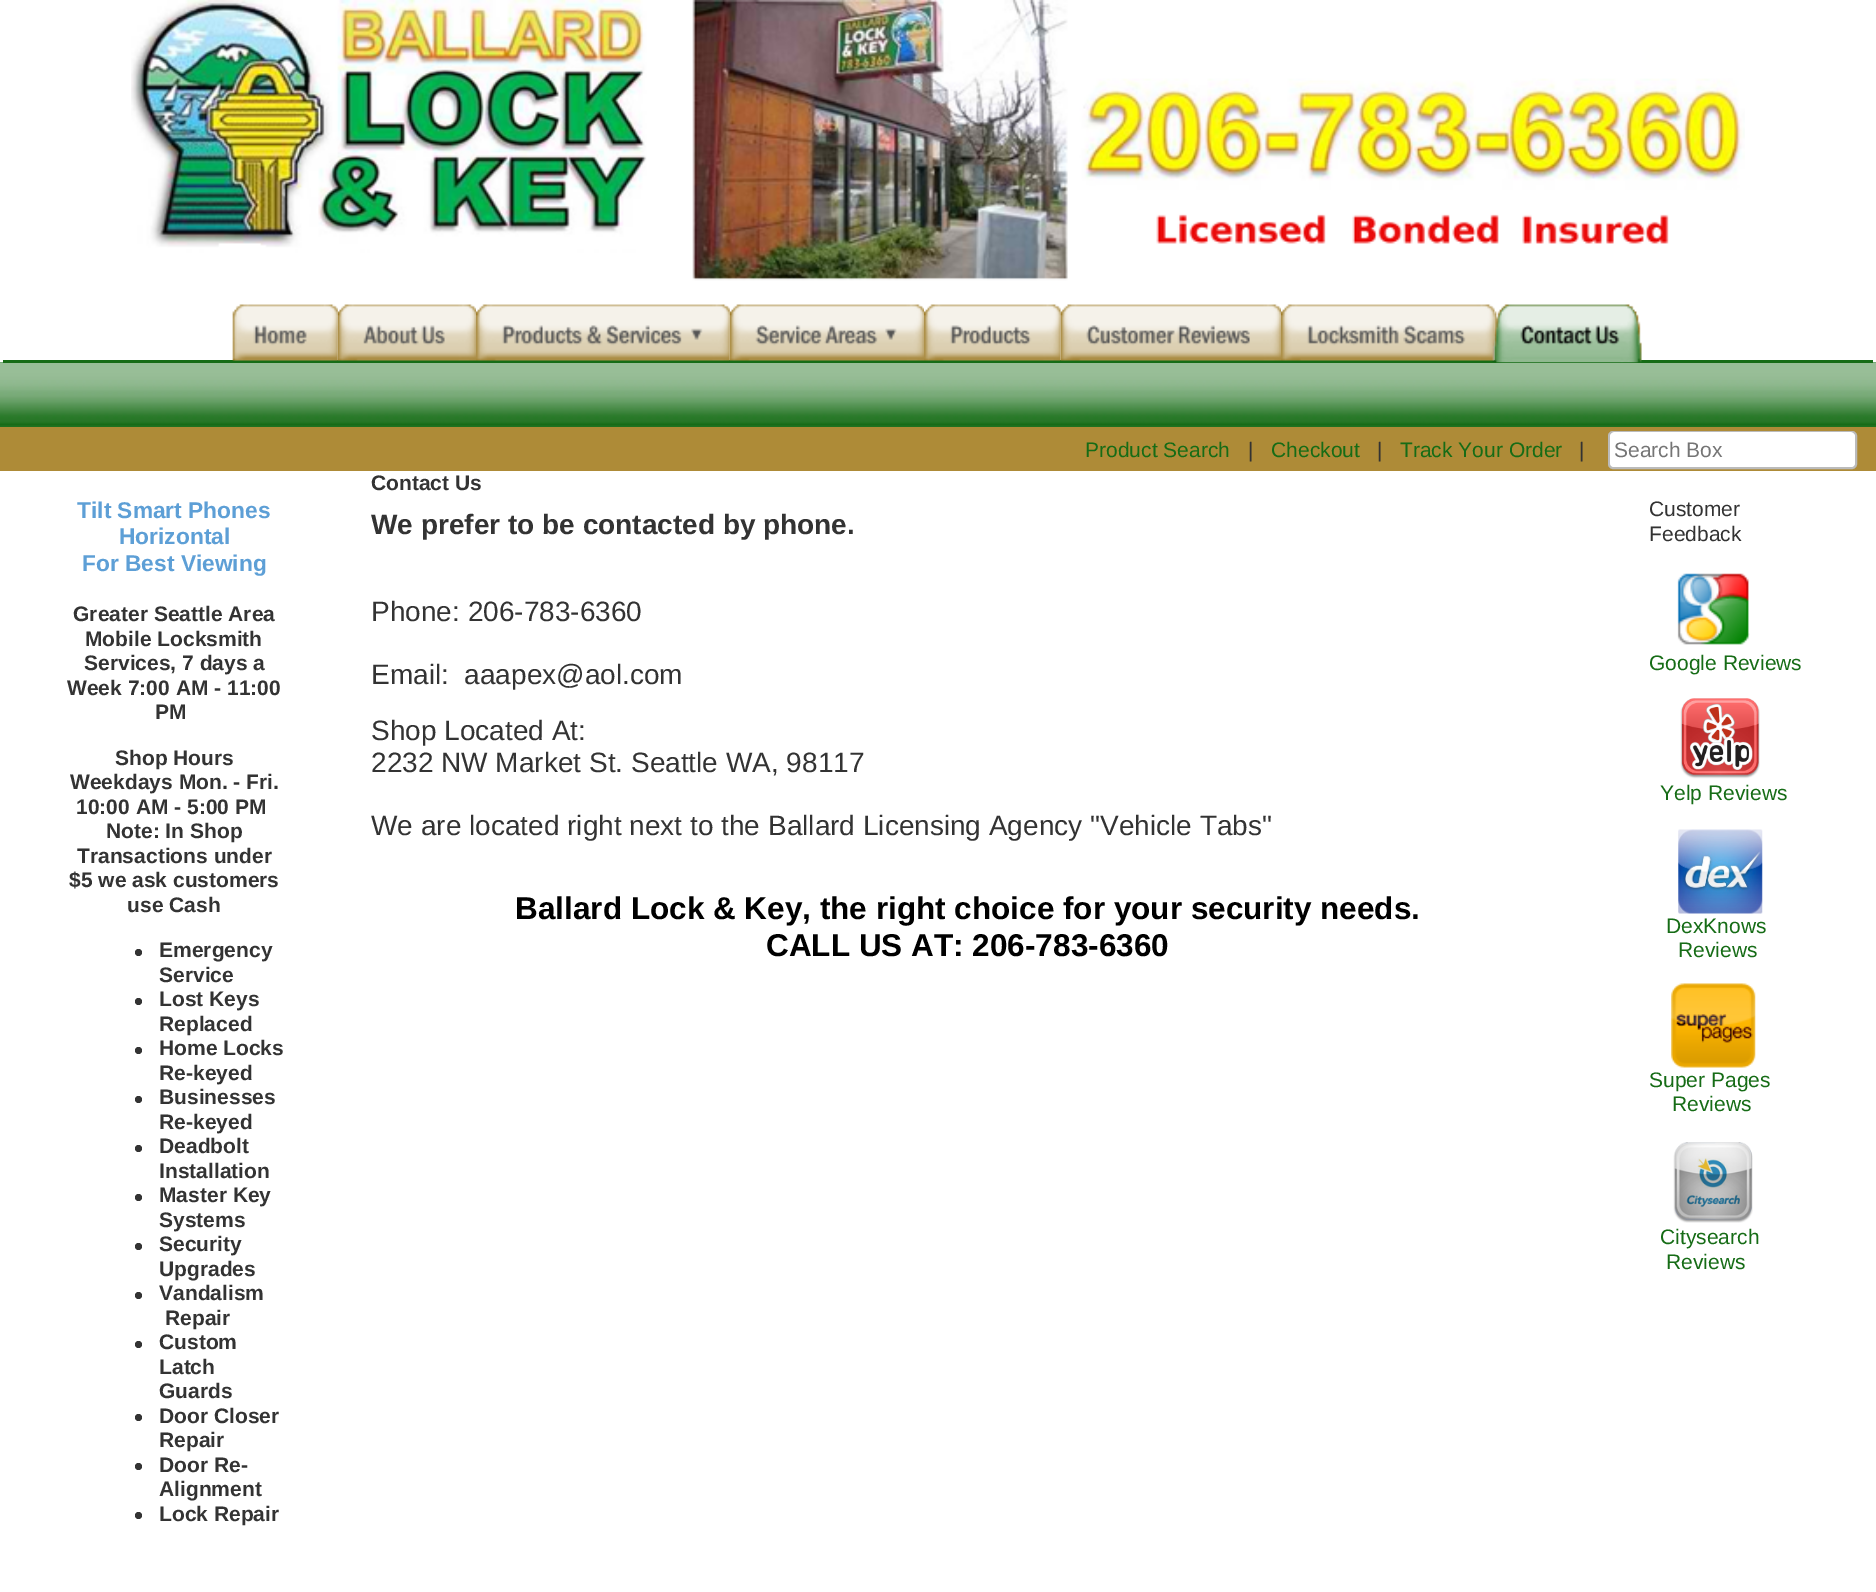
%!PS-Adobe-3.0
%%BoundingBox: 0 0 1876 1592
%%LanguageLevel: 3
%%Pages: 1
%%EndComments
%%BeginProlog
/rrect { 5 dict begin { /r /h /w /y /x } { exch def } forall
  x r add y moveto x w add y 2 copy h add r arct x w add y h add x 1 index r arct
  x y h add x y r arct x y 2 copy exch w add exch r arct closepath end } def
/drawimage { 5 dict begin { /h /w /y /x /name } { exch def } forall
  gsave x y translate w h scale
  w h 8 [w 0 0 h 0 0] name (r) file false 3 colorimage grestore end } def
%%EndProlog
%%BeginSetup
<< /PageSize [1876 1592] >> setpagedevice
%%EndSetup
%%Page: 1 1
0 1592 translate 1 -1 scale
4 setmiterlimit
1 setgray
0 0 1876 1592 rectfill
(images/1.raw) 131 0 1614 281 drawimage
(images/10.raw) 0 362 1876 65 drawimage
0.086 0.424 0.086 setrgbcolor
3 360 1870 3 rectfill
(images/2.raw) 232 304 106 57 drawimage
(images/3.raw) 337 304 139 57 drawimage
(images/4.raw) 476 304 254 57 drawimage
(images/5.raw) 729 304 195 57 drawimage
(images/6.raw) 924 304 137 57 drawimage
(images/7.raw) 1060 304 221 57 drawimage
(images/8.raw) 1281 304 214 58 drawimage
(images/9.raw) 1494 304 148 59 drawimage
0.682 0.545 0.216 setrgbcolor
0 427 1876 44 rectfill
1 setgray
1609 432 247 36 4 rrect gsave fill grestore
0.733 setgray
2 setlinewidth
stroke
1 setgray
1610 432 245 35 5 rrect fill
0.2 setgray
newpath 138.5 952.5 3.5 0 360 arc closepath fill
newpath 138.5 1001.5 3.5 0 360 arc closepath fill
newpath 138.5 1050.5 3.5 0 360 arc closepath fill
newpath 138.5 1099.5 3.5 0 360 arc closepath fill
newpath 138.5 1148.5 3.5 0 360 arc closepath fill
newpath 138.5 1197.5 3.5 0 360 arc closepath fill
newpath 138.5 1246.5 3.5 0 360 arc closepath fill
newpath 138.5 1295.5 3.5 0 360 arc closepath fill
newpath 138.5 1344.5 3.5 0 360 arc closepath fill
newpath 138.5 1417.5 3.5 0 360 arc closepath fill
newpath 138.5 1466.5 3.5 0 360 arc closepath fill
newpath 138.5 1515.5 3.5 0 360 arc closepath fill
(images/11.raw) 1677 573 73 72 drawimage
(images/12.raw) 1680 698 80 81 drawimage
(images/13.raw) 1678 829 85 85 drawimage
(images/14.raw) 1671 983 85 85 drawimage
(images/15.raw) 1673 1142 80 81 drawimage
/LiberationSans-Regular [21 0 0 -21 0 0] selectfont
0.086 0.424 0.086 setrgbcolor
1085 457 moveto (Product Search) show
0.2 setgray
1248 457 moveto (|) show
0.086 0.424 0.086 setrgbcolor
1271 457 moveto (Checkout) show
0.2 setgray
1377 457 moveto (|) show
0.086 0.424 0.086 setrgbcolor
1400 457 moveto (Track Your Order) show
0.2 setgray
1579 457 moveto (|) show
0.459 setgray
1614 457 moveto (Search Box) show
/LiberationSans-Bold [22.75 0 0 -22.75 0 0] selectfont
0.365 0.624 0.839 setrgbcolor
77 518 moveto (Tilt Smart Phones) show
119 544 moveto (Horizontal) show
82 571 moveto (For Best Viewing) show
/LiberationSans-Bold [21 0 0 -21 0 0] selectfont
0.2 setgray
73 621 moveto (Greater Seattle Area) show
85 646 moveto (Mobile Locksmith) show
84 670 moveto (Services, 7 days a) show
67 695 moveto (Week 7:00 AM - 11:00) show
155 719 moveto (PM) show
115 765 moveto (Shop Hours) show
70 789 moveto (Weekdays Mon. - Fri.) show
76 814 moveto (10:00 AM - 5:00 PM) show
106 838 moveto (Note: In Shop) show
77 863 moveto (Transactions under) show
69 887 moveto ($5 we ask customers) show
127 912 moveto (use Cash) show
159 957 moveto (Emergency) show
159 982 moveto (Service) show
159 1006 moveto (Lost Keys) show
159 1031 moveto (Replaced) show
159 1055 moveto (Home Locks) show
159 1080 moveto (Re-keyed) show
159 1104 moveto (Businesses) show
159 1129 moveto (Re-keyed) show
159 1153 moveto (Deadbolt) show
159 1178 moveto (Installation) show
159 1202 moveto (Master Key) show
159 1227 moveto (Systems) show
159 1251 moveto (Security) show
159 1276 moveto (Upgrades) show
159 1300 moveto (Vandalism) show
165 1325 moveto (Repair) show
159 1349 moveto (Custom) show
159 1374 moveto (Latch) show
159 1398 moveto (Guards) show
159 1423 moveto (Door Closer) show
159 1447 moveto (Repair) show
159 1472 moveto (Door Re-) show
159 1496 moveto (Alignment) show
159 1521 moveto (Lock Repair) show
371 490 moveto (Contact Us) show
/LiberationSans-Bold [28 0 0 -28 0 0] selectfont
371 534 moveto (We prefer to be contacted by phone.) show
/LiberationSans-Regular [28 0 0 -28 0 0] selectfont
371 621 moveto (Phone: 206-783-6360) show
371 684 moveto (Email:  aaapex@aol.com) show
371 740 moveto (Shop Located At:) show
371 772 moveto (2232 NW Market St. Seattle WA, 98117) show
371 835 moveto (We are located right next to the Ballard Licensing Agency "Vehicle Tabs") show
/LiberationSans-Bold [31.5 0 0 -31.5 0 0] selectfont
0 setgray
515 919 moveto (Ballard Lock & Key, the right choice for your security needs.) show
766 956 moveto (CALL US AT: 206-783-6360) show
/LiberationSans-Regular [21 0 0 -21 0 0] selectfont
0.2 setgray
1649 516 moveto (Customer) show
1649 541 moveto (Feedback) show
0.086 0.424 0.086 setrgbcolor
1649 670 moveto (Google Reviews) show
1660 800 moveto (Yelp Reviews) show
1666 933 moveto (DexKnows) show
1678 957 moveto (Reviews) show
1649 1087 moveto (Super Pages) show
1672 1111 moveto (Reviews) show
1660 1244 moveto (Citysearch) show
1666 1269 moveto (Reviews) show
showpage
%%EOF
